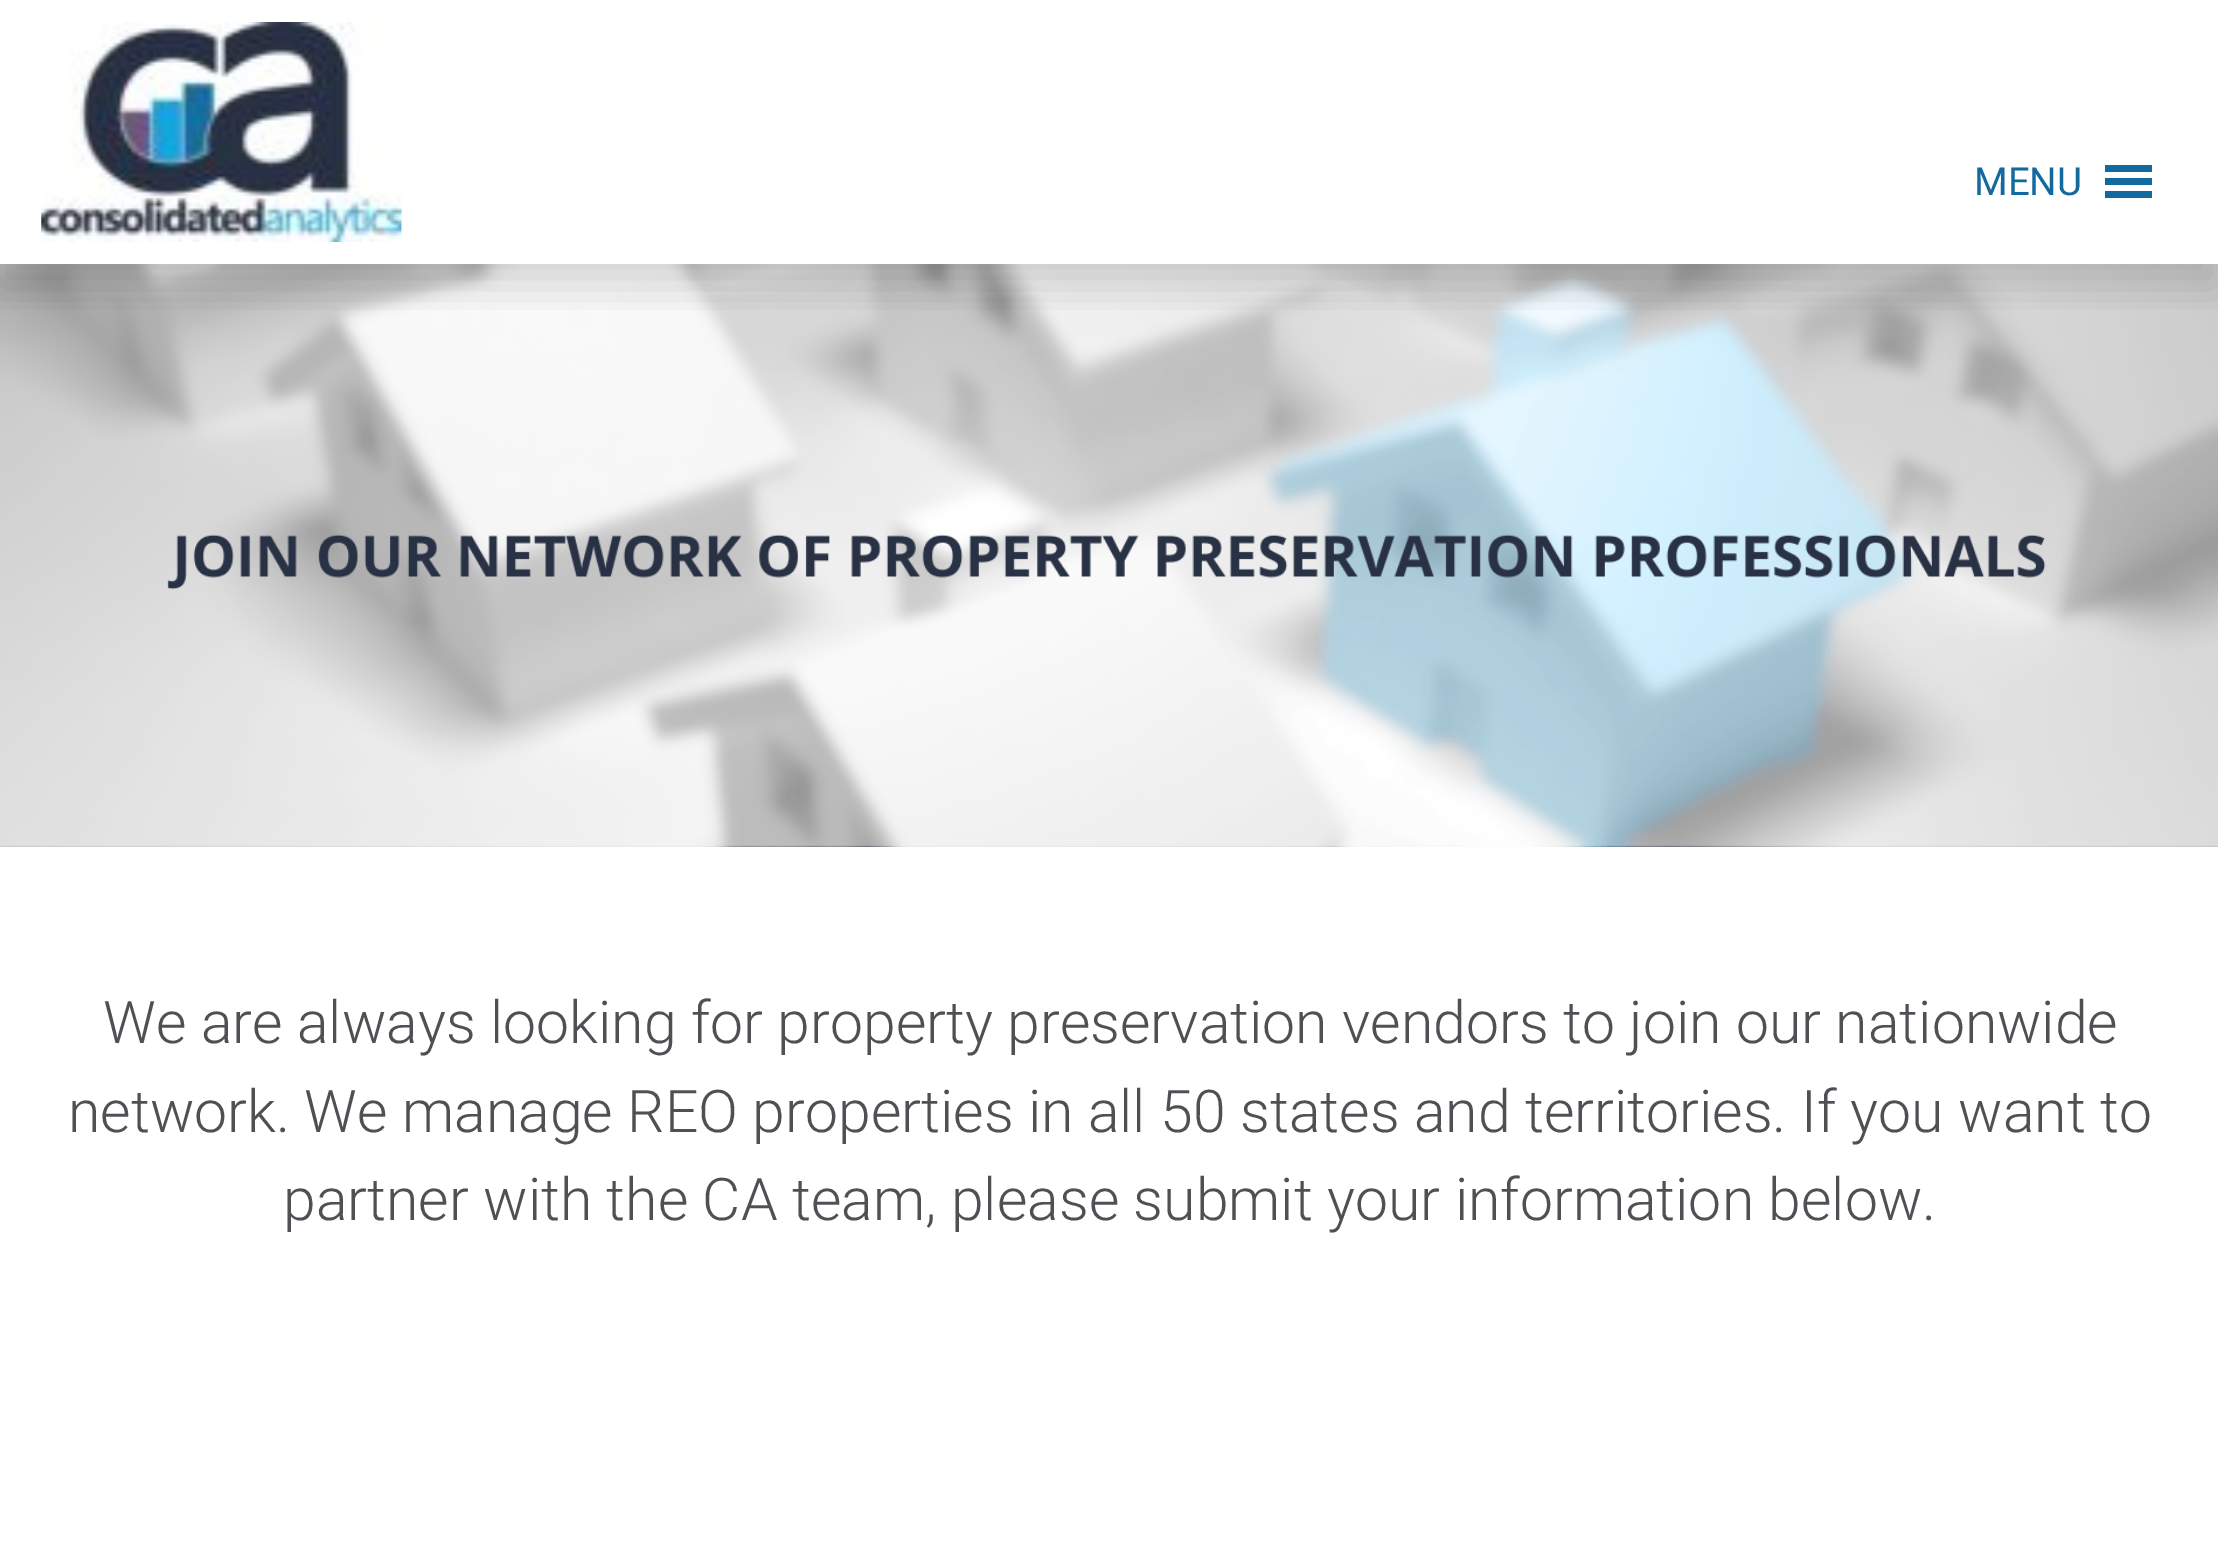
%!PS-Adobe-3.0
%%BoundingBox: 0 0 2218 1545
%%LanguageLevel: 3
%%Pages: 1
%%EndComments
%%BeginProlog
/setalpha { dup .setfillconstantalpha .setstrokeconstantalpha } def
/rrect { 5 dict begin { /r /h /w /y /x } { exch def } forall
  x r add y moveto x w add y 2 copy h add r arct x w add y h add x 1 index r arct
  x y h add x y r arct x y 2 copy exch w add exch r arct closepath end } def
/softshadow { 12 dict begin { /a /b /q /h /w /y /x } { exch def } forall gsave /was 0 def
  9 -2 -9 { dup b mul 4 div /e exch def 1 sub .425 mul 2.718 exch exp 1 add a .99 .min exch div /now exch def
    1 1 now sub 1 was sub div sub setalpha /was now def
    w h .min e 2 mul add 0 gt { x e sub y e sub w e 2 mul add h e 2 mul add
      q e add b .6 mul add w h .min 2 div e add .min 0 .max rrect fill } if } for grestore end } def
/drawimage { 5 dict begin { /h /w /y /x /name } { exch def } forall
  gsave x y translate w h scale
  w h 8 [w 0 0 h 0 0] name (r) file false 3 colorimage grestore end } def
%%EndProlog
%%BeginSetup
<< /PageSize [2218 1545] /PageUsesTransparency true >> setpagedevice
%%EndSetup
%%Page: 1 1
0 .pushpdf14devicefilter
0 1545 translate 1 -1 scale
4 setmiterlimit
1 setgray
0 0 2218 1545 rectfill
(images/2.raw) 0 264 2218 583 drawimage
gsave
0 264 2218 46 rectclip
0 setgray
0 22 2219 264 0 22 0.15 softshadow
grestore
(images/1.raw) 41 22 362 220 drawimage
0.071 0.412 0.616 setrgbcolor
newpath 2105 198 moveto 2152 198 lineto 2152 191 lineto 2105 191 lineto closepath 2105 165 moveto 2105 172 lineto 2152 172 lineto 2152 165 lineto closepath 2105 185 moveto 2152 185 lineto 2152 178 lineto 2105 178 lineto closepath fill
/Roboto-Regular [38.5 0 0 -38.5 0 0] selectfont
1974 195 moveto (MENU) show
/Roboto-Light [58.9 0 0 -58.9 0 0] selectfont
0.306 0.314 0.329 setrgbcolor
103 1043 moveto (We are always looking for property preservation vendors to join our nationwide) show
68 1132 moveto (network. We manage REO properties in all 50 states and territories. If you want to) show
283 1220 moveto (partner with the CA team, please submit your information below.) show
.poppdf14devicefilter showpage
%%EOF
